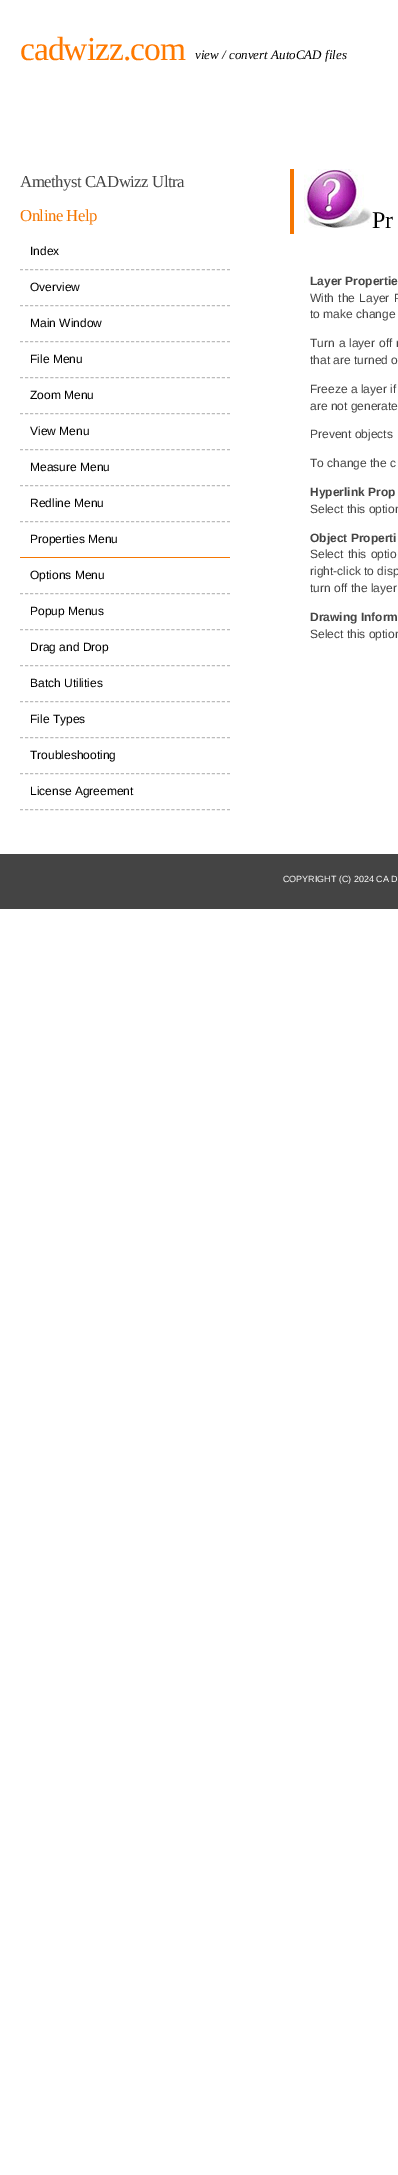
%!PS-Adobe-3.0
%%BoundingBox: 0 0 398 2175
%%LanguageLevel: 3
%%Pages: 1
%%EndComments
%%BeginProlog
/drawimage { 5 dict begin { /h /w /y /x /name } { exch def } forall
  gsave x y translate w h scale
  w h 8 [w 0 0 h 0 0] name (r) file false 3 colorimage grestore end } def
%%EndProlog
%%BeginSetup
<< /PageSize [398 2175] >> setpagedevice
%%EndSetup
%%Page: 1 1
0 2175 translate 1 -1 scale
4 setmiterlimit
1 setgray
0 0 398 2175 rectfill
0.737 setgray
[3 2.05] 0 setdash
newpath 20 269.5 moveto 230 269.5 lineto stroke
newpath 20 305.5 moveto 230 305.5 lineto stroke
newpath 20 341.5 moveto 230 341.5 lineto stroke
newpath 20 377.5 moveto 230 377.5 lineto stroke
newpath 20 413.5 moveto 230 413.5 lineto stroke
newpath 20 449.5 moveto 230 449.5 lineto stroke
newpath 20 485.5 moveto 230 485.5 lineto stroke
newpath 20 521.5 moveto 230 521.5 lineto stroke
0.961 0.463 0.004 setrgbcolor
20 557 210 1 rectfill
0.737 setgray
newpath 20 593.5 moveto 230 593.5 lineto stroke
newpath 20 629.5 moveto 230 629.5 lineto stroke
newpath 20 665.5 moveto 230 665.5 lineto stroke
newpath 20 701.5 moveto 230 701.5 lineto stroke
newpath 20 737.5 moveto 230 737.5 lineto stroke
newpath 20 773.5 moveto 230 773.5 lineto stroke
newpath 20 809.5 moveto 230 809.5 lineto stroke
0.961 0.463 0.004 setrgbcolor
290 169 4 65 rectfill
(images/1.raw) 304 169 68 59 drawimage
0.267 setgray
0 854 398 55 rectfill
/LiberationSerif-Regular [33.5 0 0 -33.5 0 0] selectfont
1 0.475 0 setrgbcolor
20 60 moveto -1 0 (cadwizz.com) ashow
/LiberationSerif-Italic [13 0 0 -13 0 0] selectfont
0 setgray
195 59 moveto (view / convert AutoCAD files) show
/LiberationSerif-Regular [16.75 0 0 -16.75 0 0] selectfont
0.267 setgray
20 187 moveto -0.5 0 (Amethyst CADwizz Ultra) ashow
0.961 0.463 0.004 setrgbcolor
20 221 moveto -0.5 0 (Online Help) ashow
/LiberationSans-Regular [12 0 0 -12 0 0] selectfont
0 setgray
30 255 moveto (Index) show
30 291 moveto (Overview) show
30 327 moveto (Main Window) show
30 363 moveto (File Menu) show
30 399 moveto (Zoom Menu) show
30 435 moveto (View Menu) show
30 471 moveto (Measure Menu) show
30 507 moveto (Redline Menu) show
30 543 moveto (Properties Menu) show
30 579 moveto (Options Menu) show
30 615 moveto (Popup Menus) show
30 651 moveto (Drag and Drop) show
30 687 moveto (Batch Utilities) show
30 723 moveto (File Types) show
30 759 moveto (Troubleshooting) show
30 795 moveto (License Agreement) show
/LiberationSerif-Regular [24 0 0 -24 0 0] selectfont
372 228 moveto (Pr) show
/LiberationSans-Bold [12 0 0 -12 0 0] selectfont
0.267 setgray
310 285 moveto (Layer Propertie) show
/LiberationSans-Regular [12 0 0 -12 0 0] selectfont
310 302 moveto 1 0 32 (With the Layer P) widthshow
310 318 moveto (to make change) show
310 347 moveto 0.5 0 32 (Turn a layer off r) widthshow
310 364 moveto (that are turned o) show
310 393 moveto (Freeze a layer if) show
310 410 moveto (are not generate) show
310 438 moveto (Prevent objects) show
310 467 moveto (To change the c) show
/LiberationSans-Bold [12 0 0 -12 0 0] selectfont
310 496 moveto (Hyperlink Prop) show
/LiberationSans-Regular [12 0 0 -12 0 0] selectfont
310 513 moveto (Select this option) show
/LiberationSans-Bold [12 0 0 -12 0 0] selectfont
310 542 moveto (Object Properti) show
/LiberationSans-Regular [12 0 0 -12 0 0] selectfont
310 558 moveto 1 0 32 (Select this optio) widthshow
310 575 moveto (right-click to disp) show
310 592 moveto (turn off the layer) show
/LiberationSans-Bold [12 0 0 -12 0 0] selectfont
310 621 moveto (Drawing Inform) show
/LiberationSans-Regular [12 0 0 -12 0 0] selectfont
310 638 moveto (Select this option) show
/LiberationSans-Regular [9 0 0 -9 0 0] selectfont
1 setgray
283 882 moveto (COPYRIGHT \(C\) 2024 CA D) show
showpage
%%EOF
